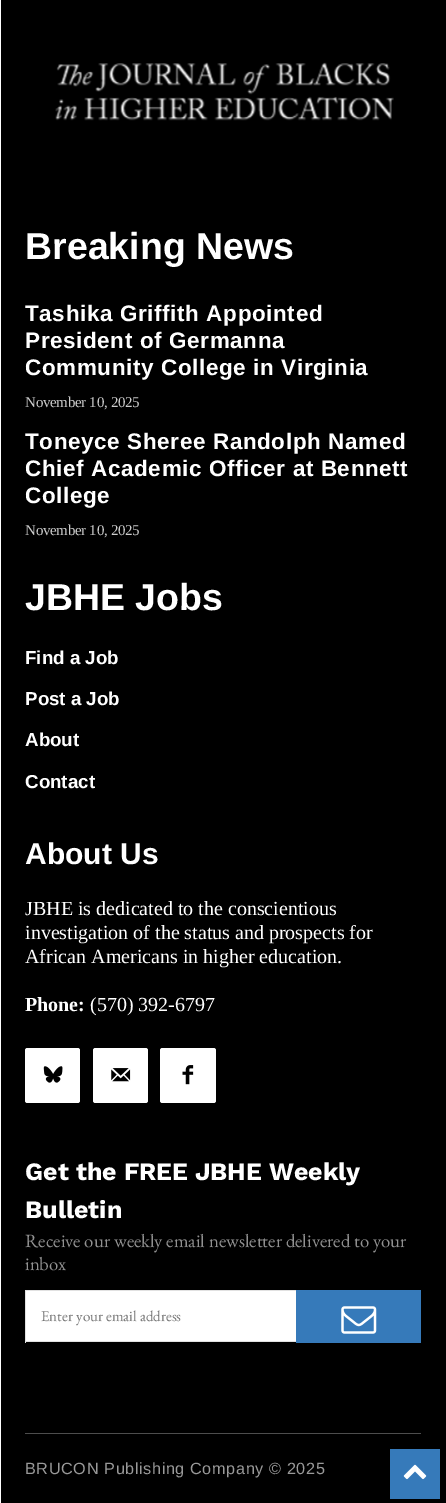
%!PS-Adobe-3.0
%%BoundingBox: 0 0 446 1503
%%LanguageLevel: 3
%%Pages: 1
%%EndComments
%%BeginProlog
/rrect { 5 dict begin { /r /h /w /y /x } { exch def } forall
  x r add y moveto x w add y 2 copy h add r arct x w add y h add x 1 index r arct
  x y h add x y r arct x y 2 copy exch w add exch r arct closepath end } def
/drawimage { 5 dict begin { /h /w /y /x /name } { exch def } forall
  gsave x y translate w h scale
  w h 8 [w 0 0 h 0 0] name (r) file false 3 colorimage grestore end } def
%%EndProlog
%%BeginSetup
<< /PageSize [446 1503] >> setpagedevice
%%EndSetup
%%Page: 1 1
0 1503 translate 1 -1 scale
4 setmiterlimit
1 setgray
0 0 446 1503 rectfill
0 setgray
1 0 445 1503 rectfill
(images/1.raw) 55 62 339 59 drawimage
1 setgray
25 1048 55 55 2.5 rrect fill
(images/2.raw) 43 1066 20 17 drawimage
93 1048 55 55 2.5 rrect fill
(images/3.raw) 111 1068 20 14 drawimage
160 1048 56 55 2.5 rrect fill
(images/4.raw) 182 1065 12 20 drawimage
26 1291 270 50 rectfill
0.882 setgray
25 1290 271 1 rectfill
25 1341 271 1 rectfill
25 1290 1 53 rectfill
0.212 0.478 0.729 setrgbcolor
296 1290 125 53 rectfill
(images/5.raw) 341 1306 36 28 drawimage
0.302 setgray
25 1433 396 1 rectfill
0.212 0.478 0.729 setrgbcolor
390 1449 50 50 rectfill
(images/6.raw) 403 1464 24 16 drawimage
/LiberationSans-Bold [37.5 0 0 -37.5 0 0] selectfont
1 setgray
25 259 moveto (Breaking News) show
/LiberationSans-Bold [22.5 0 0 -22.5 0 0] selectfont
25 321 moveto 0.6 0 (Tashika Griffith Appointed) ashow
25 348 moveto 0.6 0 (President of Germanna) ashow
25 375 moveto 0.6 0 (Community College in Virginia) ashow
/LiberationSerif-Regular [15 0 0 -15 0 0] selectfont
0.8 setgray
25 407 moveto -0.3 0 (November 10, 2025) ashow
/LiberationSans-Bold [22.5 0 0 -22.5 0 0] selectfont
1 setgray
25 449 moveto 0.6 0 (Toneyce Sheree Randolph Named) ashow
25 476 moveto 0.6 0 (Chief Academic Officer at Bennett) ashow
25 503 moveto 0.6 0 (College) ashow
/LiberationSerif-Regular [15 0 0 -15 0 0] selectfont
0.8 setgray
25 535 moveto -0.3 0 (November 10, 2025) ashow
/LiberationSans-Bold [37.5 0 0 -37.5 0 0] selectfont
1 setgray
25 610 moveto (JBHE Jobs) show
/LiberationSans-Bold [18.75 0 0 -18.75 0 0] selectfont
25 664 moveto (Find a Job) show
25 705 moveto (Post a Job) show
25 746 moveto (About) show
25 788 moveto (Contact) show
/LiberationSans-Bold [30 0 0 -30 0 0] selectfont
25 864 moveto (About Us) show
/LiberationSerif-Regular [20 0 0 -20 0 0] selectfont
25 915 moveto (JBHE is dedicated to the conscientious) show
25 939 moveto (investigation of the status and prospects for) show
25 963 moveto (African Americans in higher education.) show
/LiberationSerif-Bold [20 0 0 -20 0 0] selectfont
25 1011 moveto (Phone:) show
/LiberationSerif-Regular [20 0 0 -20 0 0] selectfont
90 1011 moveto (\(570\) 392-6797) show
/WorkSans-Bold [25 0 0 -25 0 0] selectfont
25 1180 moveto (Get the FREE JBHE Weekly) show
25 1218 moveto (Bulletin) show
/EBGaramond-Regular [18.75 0 0 -18.75 0 0] selectfont
0.569 setgray
25 1247 moveto (Receive our weekly email newsletter delivered to your) show
25 1270 moveto (inbox) show
/EBGaramond-Regular [15 0 0 -15 0 0] selectfont
0.459 setgray
41 1321 moveto (Enter your email address) show
/LiberationSans-Regular [16.25 0 0 -16.25 0 0] selectfont
0.6 setgray
25 1474 moveto 0.6 0 (BRUCON Publishing Company © 2025) ashow
showpage
%%EOF
